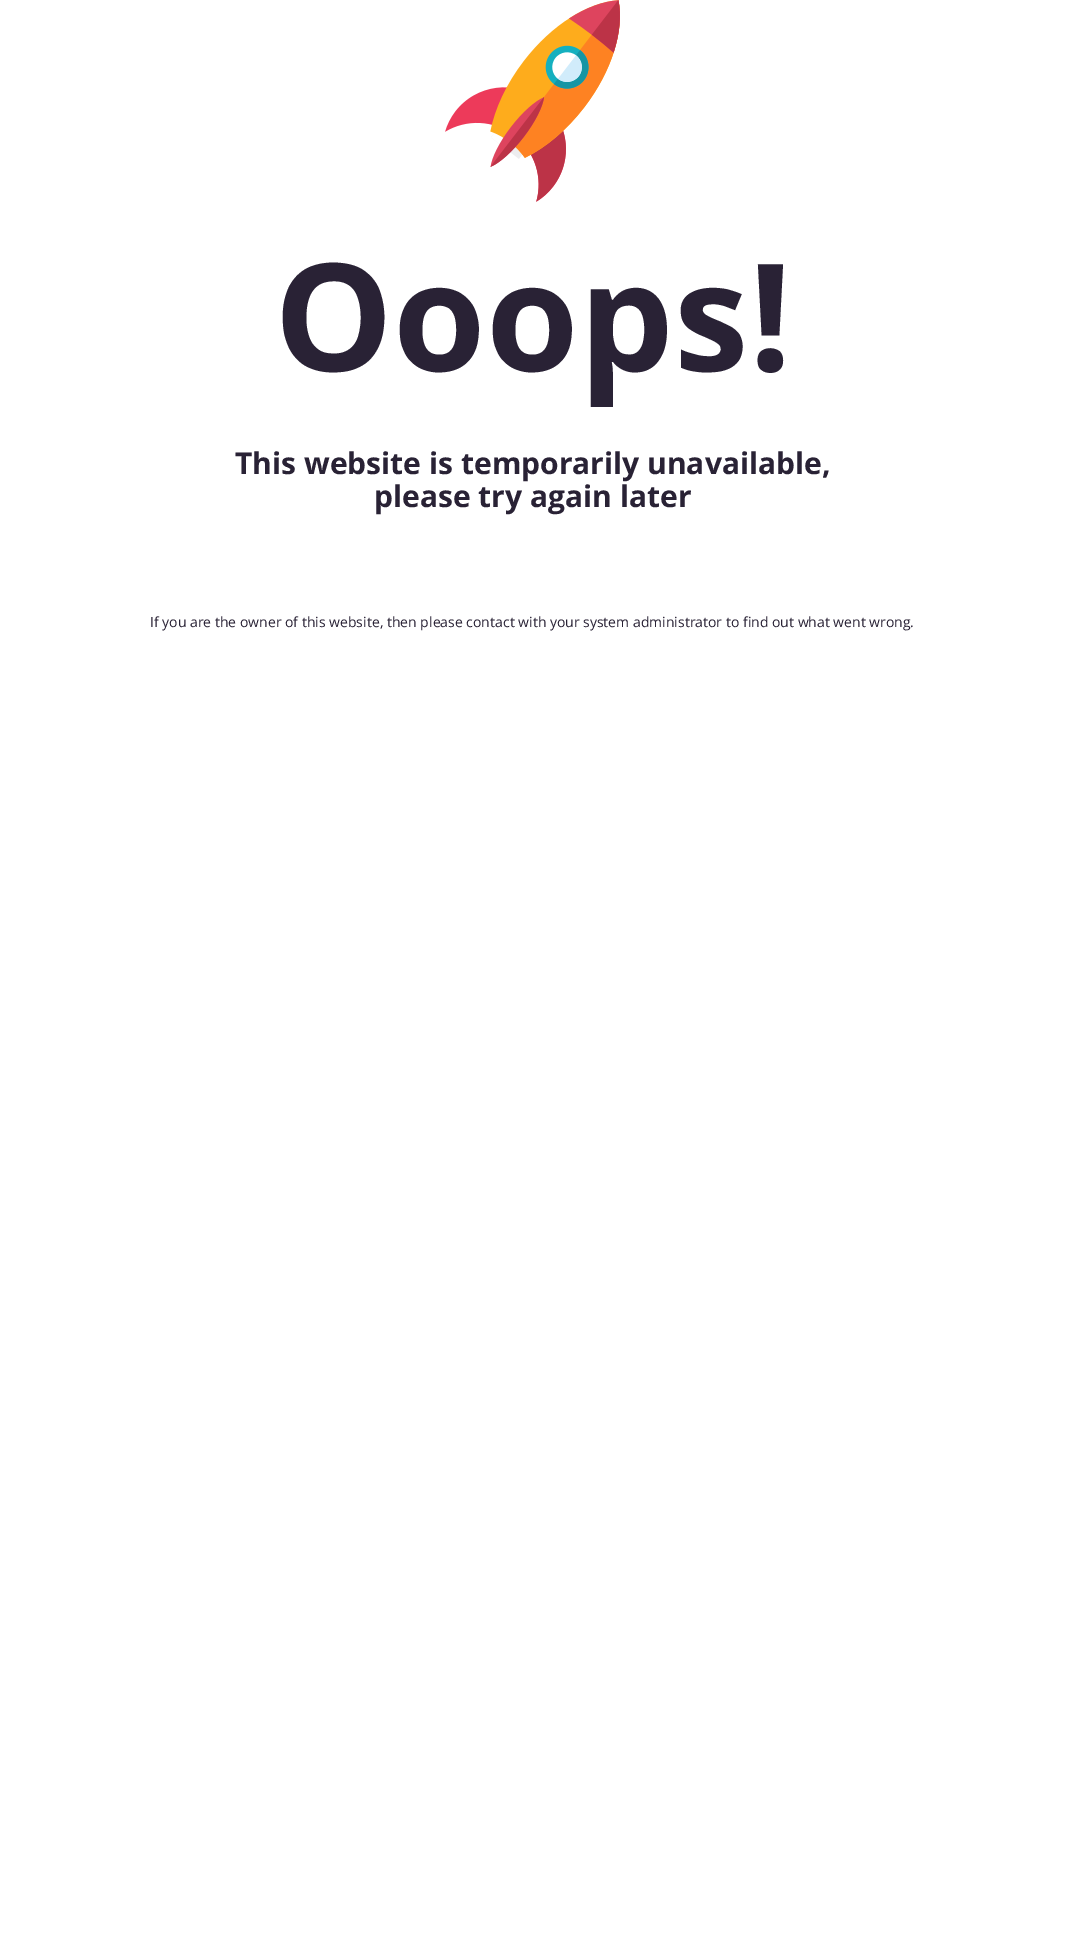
%!PS-Adobe-3.0
%%BoundingBox: 0 0 1065 1951
%%LanguageLevel: 3
%%Pages: 1
%%EndComments
%%BeginProlog
/drawimage { 5 dict begin { /h /w /y /x /name } { exch def } forall
  gsave x y translate w h scale
  w h 8 [w 0 0 h 0 0] name (r) file false 3 colorimage grestore end } def
%%EndProlog
%%BeginSetup
<< /PageSize [1065 1951] >> setpagedevice
%%EndSetup
%%Page: 1 1
0 1951 translate 1 -1 scale
4 setmiterlimit
1 setgray
0 0 1065 1951 rectfill
(images/1.raw) 445 0 175 202 drawimage
/OpenSans-Bold [150 0 0 -150 0 0] selectfont
0.161 0.133 0.208 setrgbcolor
274 371 moveto (Ooops!) show
/OpenSans-Bold [30 0 0 -30 0 0] selectfont
235 474 moveto (This website is temporarily unavailable,) show
374 507 moveto (please try again later) show
/OpenSans-Regular [14 0 0 -14 0 0] selectfont
150 627 moveto (If you are the owner of this website, then please contact with your system administrator to find out what went wrong.) show
showpage
%%EOF
